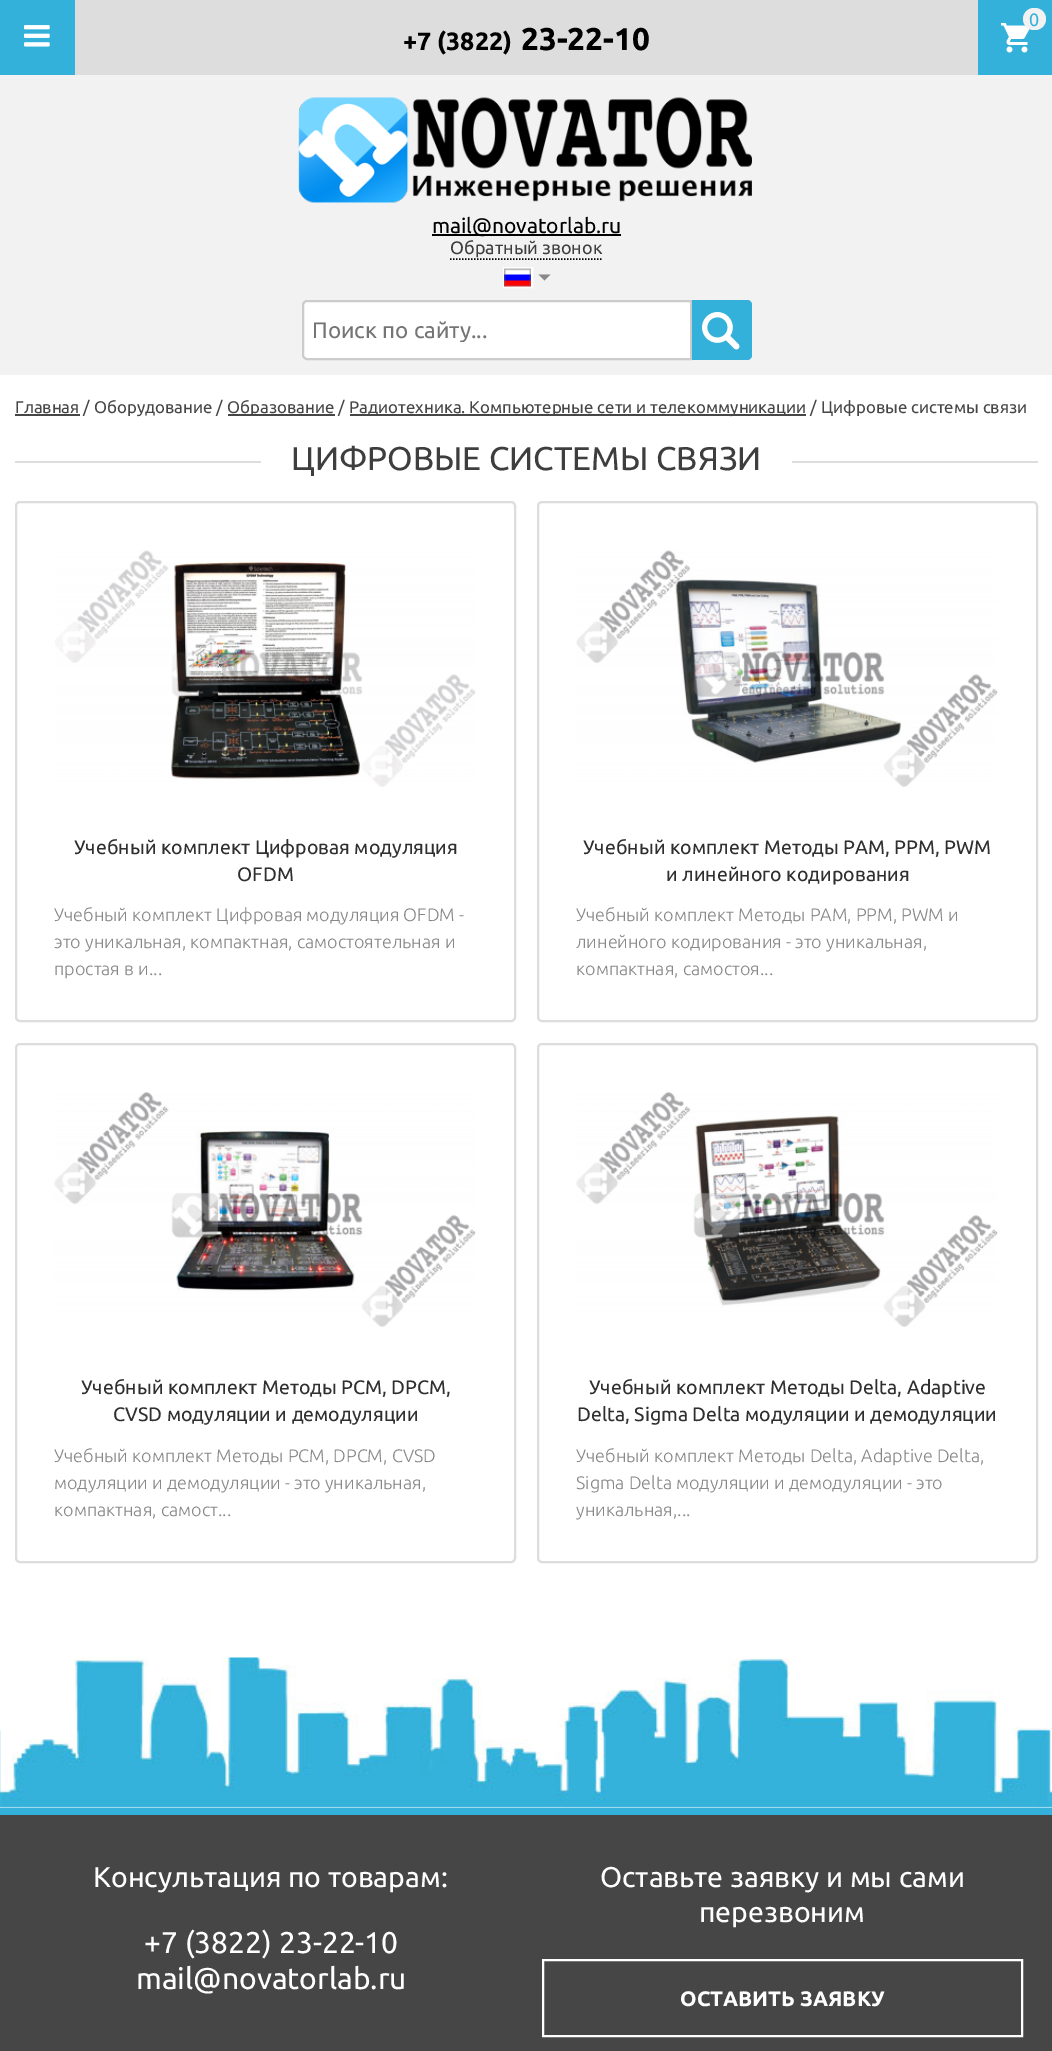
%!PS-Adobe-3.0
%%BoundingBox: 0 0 1052 2051
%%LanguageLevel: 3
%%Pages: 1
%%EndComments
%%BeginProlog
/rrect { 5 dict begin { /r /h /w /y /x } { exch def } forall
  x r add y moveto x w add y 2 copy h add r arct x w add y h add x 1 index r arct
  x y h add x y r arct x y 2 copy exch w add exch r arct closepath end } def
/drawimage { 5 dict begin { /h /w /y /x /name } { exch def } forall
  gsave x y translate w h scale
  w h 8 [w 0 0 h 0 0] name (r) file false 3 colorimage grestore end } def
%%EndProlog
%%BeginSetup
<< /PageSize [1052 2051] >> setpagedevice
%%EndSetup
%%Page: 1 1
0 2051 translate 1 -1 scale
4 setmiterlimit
1 setgray
0 0 1052 2051 rectfill
0.949 setgray
0 75 1052 300 rectfill
0.204 0.694 0.855 setrgbcolor
0 0 75 75 rectfill
(images/1.raw) 24 25 26 22 drawimage
978 0 74 75 rectfill
(images/2.raw) 1001 23 29 30 drawimage
0.949 setgray
1023 8 23 22 11 rrect fill
0.867 setgray
75 0 903 75 rectfill
0 setgray
432 234 189 2 rectfill
1.5 setlinewidth
[1.5 1.5] 0 setdash
newpath 450 259 moveto 603 259 lineto stroke
(images/3.raw) 298 97 455 106 drawimage
1 setgray
2 setlinewidth
[] 0 setdash
504 268 28 19 rectstroke
(images/4.raw) 504 268 27 19 drawimage
0.533 setgray
newpath 538.5 274.5 moveto 550.5 274.5 lineto 544.5 280.5 lineto closepath fill
1 setgray
newpath 307 301 moveto 691 301 lineto 691 359 lineto 307 359 lineto 305 359 303 357 303 355 curveto 303 305 lineto 303 303 305 301 307 301 curveto closepath gsave fill grestore
0.8 setgray
stroke
0.204 0.694 0.855 setrgbcolor
newpath 692 300 moveto 747 300 lineto 750 300 752 302 752 305 curveto 752 355 lineto 752 358 750 360 747 360 curveto 692 360 lineto closepath fill
(images/5.raw) 702 312 38 38 drawimage
0.275 setgray
15 414 65 2 rectfill
228 414 107 2 rectfill
350 414 456 2 rectfill
0.867 setgray
15 461 1023 2 rectfill
1 setgray
261 461 531 2 rectfill
0.867 setgray
16 502 499 519 4 rrect stroke
(images/6.raw) 55 550 421 237 drawimage
538 502 499 519 4 rrect stroke
(images/7.raw) 576 550 422 237 drawimage
16 1044 499 518 4 rrect stroke
(images/8.raw) 54 1092 422 235 drawimage
538 1044 499 518 4 rrect stroke
(images/9.raw) 576 1092 422 235 drawimage
(images/10.raw) 0 1657 1052 151 drawimage
0.275 setgray
0 1815 1052 236 rectfill
0.204 0.694 0.855 setrgbcolor
0 1808 1052 7 rectfill
1 setgray
543 1960 479 76 rectstroke
/Ubuntu-Regular [18 0 0 -18 0 0] selectfont
0.204 0.694 0.855 setrgbcolor
1029 26 moveto (0) show
/Ubuntu-Bold [25 0 0 -25 0 0] selectfont
0 setgray
403 50 moveto (+7 \(3822\)) show
/Ubuntu-Bold [31.5 0 0 -31.5 0 0] selectfont
521 50 moveto (23-22-10) show
/Ubuntu-Regular [21 0 0 -21 0 0] selectfont
432 233 moveto (mail@novatorlab.ru) show
/Ubuntu-Regular [18 0 0 -18 0 0] selectfont
0.243 setgray
450 254 moveto (Обратный звонок) show
gsave
312 317 369 25 rectclip
/Ubuntu-Regular [22.5 0 0 -22.5 0 0] selectfont
0.459 setgray
312 338 moveto (Поиск по сайту...) show
grestore
/Ubuntu-Regular [16.8 0 0 -16.8 0 0] selectfont
0.275 setgray
15 413 moveto (Главная /) show
94 413 moveto (Оборудование /) show
227 413 moveto (Образование /) show
349 413 moveto (Радиотехника. Компьютерные сети и телекоммуникации) show
810 413 moveto (/) show
821 413 moveto (Цифровые системы связи) show
/Ubuntu-Regular [33 0 0 -33 0 0] selectfont
0.243 setgray
291 470 moveto (ЦИФРОВЫЕ СИСТЕМЫ СВЯЗИ) show
/Ubuntu-Regular [19.5 0 0 -19.5 0 0] selectfont
0.184 setgray
74 854 moveto (Учебный комплект Цифровая модуляция) show
237 881 moveto (OFDM) show
/Ubuntu-Light [18 0 0 -18 0 0] selectfont
0.533 setgray
54 921 moveto (Учебный комплект Цифровая модуляция OFDM -) show
54 948 moveto (это уникальная, компактная, самостоятельная и) show
54 975 moveto (простая в и...) show
/Ubuntu-Regular [19.5 0 0 -19.5 0 0] selectfont
0.184 setgray
583 854 moveto (Учебный комплект Методы PAM, PPM, PWM) show
666 881 moveto (и линейного кодирования) show
/Ubuntu-Light [18 0 0 -18 0 0] selectfont
0.533 setgray
576 921 moveto (Учебный комплект Методы PAM, PPM, PWM и) show
576 948 moveto (линейного кодирования - это уникальная,) show
576 975 moveto (компактная, самостоя...) show
/Ubuntu-Regular [19.5 0 0 -19.5 0 0] selectfont
0.184 setgray
81 1394 moveto (Учебный комплект Методы PCM, DPCM,) show
113 1421 moveto (CVSD модуляции и демодуляции) show
/Ubuntu-Light [18 0 0 -18 0 0] selectfont
0.533 setgray
54 1462 moveto (Учебный комплект Методы PCM, DPCM, CVSD) show
54 1489 moveto (модуляции и демодуляции - это уникальная,) show
54 1516 moveto (компактная, самост...) show
/Ubuntu-Regular [19.5 0 0 -19.5 0 0] selectfont
0.184 setgray
589 1394 moveto (Учебный комплект Методы Delta, Adaptive) show
577 1421 moveto (Delta, Sigma Delta модуляции и демодуляции) show
/Ubuntu-Light [18 0 0 -18 0 0] selectfont
0.533 setgray
576 1462 moveto (Учебный комплект Методы Delta, Adaptive Delta,) show
576 1489 moveto (Sigma Delta модуляции и демодуляции - это) show
576 1516 moveto (уникальная,...) show
/Ubuntu-Regular [28.5 0 0 -28.5 0 0] selectfont
1 setgray
93 1887 moveto (Консультация по товарам:) show
/Ubuntu-Regular [30 0 0 -30 0 0] selectfont
144 1953 moveto (+7 \(3822\) 23-22-10) show
136 1989 moveto (mail@novatorlab.ru) show
/Ubuntu-Regular [28.5 0 0 -28.5 0 0] selectfont
600 1887 moveto (Оставьте заявку и мы сами) show
699 1922 moveto (перезвоним) show
/Ubuntu-Bold [21 0 0 -21 0 0] selectfont
680 2006 moveto (ОСТАВИТЬ ЗАЯВКУ) show
showpage
%%EOF
